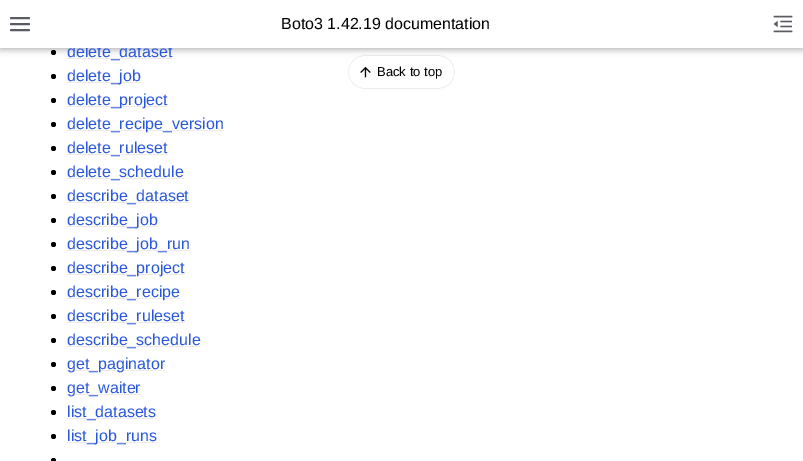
%!PS-Adobe-3.0
%%BoundingBox: 0 0 803 461
%%LanguageLevel: 3
%%Pages: 1
%%EndComments
%%BeginProlog
/setalpha { dup .setfillconstantalpha .setstrokeconstantalpha } def
/rrect { 5 dict begin { /r /h /w /y /x } { exch def } forall
  x r add y moveto x w add y 2 copy h add r arct x w add y h add x 1 index r arct
  x y h add x y r arct x y 2 copy exch w add exch r arct closepath end } def
/softshadow { 12 dict begin { /a /b /q /h /w /y /x } { exch def } forall gsave /was 0 def
  9 -2 -9 { dup b mul 4 div /e exch def 1 sub .425 mul 2.718 exch exp 1 add a .99 .min exch div /now exch def
    1 1 now sub 1 was sub div sub setalpha /was now def
    w h .min e 2 mul add 0 gt { x e sub y e sub w e 2 mul add h e 2 mul add
      q e add b .6 mul add w h .min 2 div e add .min 0 .max rrect fill } if } for grestore end } def
/drawimage { 5 dict begin { /h /w /y /x /name } { exch def } forall
  gsave x y translate w h scale
  w h 8 [w 0 0 h 0 0] name (r) file false 3 colorimage grestore end } def
%%EndProlog
%%BeginSetup
<< /PageSize [803 461] /PageUsesTransparency true >> setpagedevice
%%EndSetup
%%Page: 1 1
0 .pushpdf14devicefilter
0 461 translate 1 -1 scale
4 setmiterlimit
1 setgray
0 0 803 461 rectfill
0 setgray
newpath 53.5 52.5 2.5 0 360 arc closepath fill
0.933 0.922 0.933 setrgbcolor
67 58 105 1 rectfill
0 setgray
0 3 803 48 0 3 0.2 softshadow
0 0 803 48 0 1.5 0.1 softshadow
newpath 53.5 76.5 2.5 0 360 arc closepath fill
0.933 0.922 0.933 setrgbcolor
67 82 74 1 rectfill
0 setgray
newpath 53.5 100.5 2.5 0 360 arc closepath fill
0.933 0.922 0.933 setrgbcolor
67 106 101 1 rectfill
0 setgray
newpath 53.5 124.5 2.5 0 360 arc closepath fill
0.933 0.922 0.933 setrgbcolor
67 130 157 1 rectfill
0 setgray
newpath 53.5 148.5 2.5 0 360 arc closepath fill
0.933 0.922 0.933 setrgbcolor
67 154 101 1 rectfill
0 setgray
newpath 53.5 172.5 2.5 0 360 arc closepath fill
0.933 0.922 0.933 setrgbcolor
67 178 117 1 rectfill
0 setgray
newpath 53.5 196.5 2.5 0 360 arc closepath fill
0.933 0.922 0.933 setrgbcolor
67 202 122 1 rectfill
0 setgray
newpath 53.5 220.5 2.5 0 360 arc closepath fill
0.933 0.922 0.933 setrgbcolor
67 226 91 1 rectfill
0 setgray
newpath 53.5 244.5 2.5 0 360 arc closepath fill
0.933 0.922 0.933 setrgbcolor
67 250 123 1 rectfill
0 setgray
newpath 53.5 268.5 2.5 0 360 arc closepath fill
0.933 0.922 0.933 setrgbcolor
67 274 118 1 rectfill
0 setgray
newpath 53.5 292.5 2.5 0 360 arc closepath fill
0.933 0.922 0.933 setrgbcolor
67 298 113 1 rectfill
0 setgray
newpath 53.5 316.5 2.5 0 360 arc closepath fill
0.933 0.922 0.933 setrgbcolor
67 322 118 1 rectfill
0 setgray
newpath 53.5 340.5 2.5 0 360 arc closepath fill
0.933 0.922 0.933 setrgbcolor
67 346 134 1 rectfill
0 setgray
newpath 53.5 364.5 2.5 0 360 arc closepath fill
0.933 0.922 0.933 setrgbcolor
67 370 98 1 rectfill
0 setgray
newpath 53.5 388.5 2.5 0 360 arc closepath fill
0.933 0.922 0.933 setrgbcolor
67 394 74 1 rectfill
0 setgray
newpath 53.5 412.5 2.5 0 360 arc closepath fill
0.933 0.922 0.933 setrgbcolor
67 418 89 1 rectfill
0 setgray
newpath 53.5 436.5 2.5 0 360 arc closepath fill
0.933 0.922 0.933 setrgbcolor
67 442 90 1 rectfill
0 setgray
newpath 53.5 460.5 2.5 0 360 arc closepath fill
0.42 0.447 0.502 setrgbcolor
349 56 105 32 16 0.5 0.5 softshadow
1 setgray
349 56 105 32 16 rrect fill
(images/2.raw) 360 66 11 12 drawimage
/LiberationSans-Regular [16 0 0 -16 0 0] selectfont
0.153 0.341 0.867 setrgbcolor
67 57 moveto (delete_dataset) show
1 setgray
0 0 803 48 rectfill
(images/1.raw) 773 15 20 18 drawimage
0.353 0.361 0.388 setrgbcolor
2 setlinewidth
1 setlinecap
1 setlinejoin
newpath 11 24 moveto 29 24 lineto 11 18 moveto 29 18 lineto 11 30 moveto 29 30 lineto stroke
0 setgray
281 29 moveto (Boto3 1.42.19 documentation) show
0.153 0.341 0.867 setrgbcolor
67 81 moveto (delete_job) show
67 105 moveto (delete_project) show
67 129 moveto (delete_recipe_version) show
67 153 moveto (delete_ruleset) show
67 177 moveto (delete_schedule) show
67 201 moveto (describe_dataset) show
67 225 moveto (describe_job) show
67 249 moveto (describe_job_run) show
67 273 moveto (describe_project) show
67 297 moveto (describe_recipe) show
67 321 moveto (describe_ruleset) show
67 345 moveto (describe_schedule) show
67 369 moveto (get_paginator) show
67 393 moveto (get_waiter) show
67 417 moveto (list_datasets) show
67 441 moveto (list_job_runs) show
/LiberationSans-Regular [13 0 0 -13 0 0] selectfont
0 setgray
377 76 moveto (Back to top) show
.poppdf14devicefilter showpage
%%EOF
